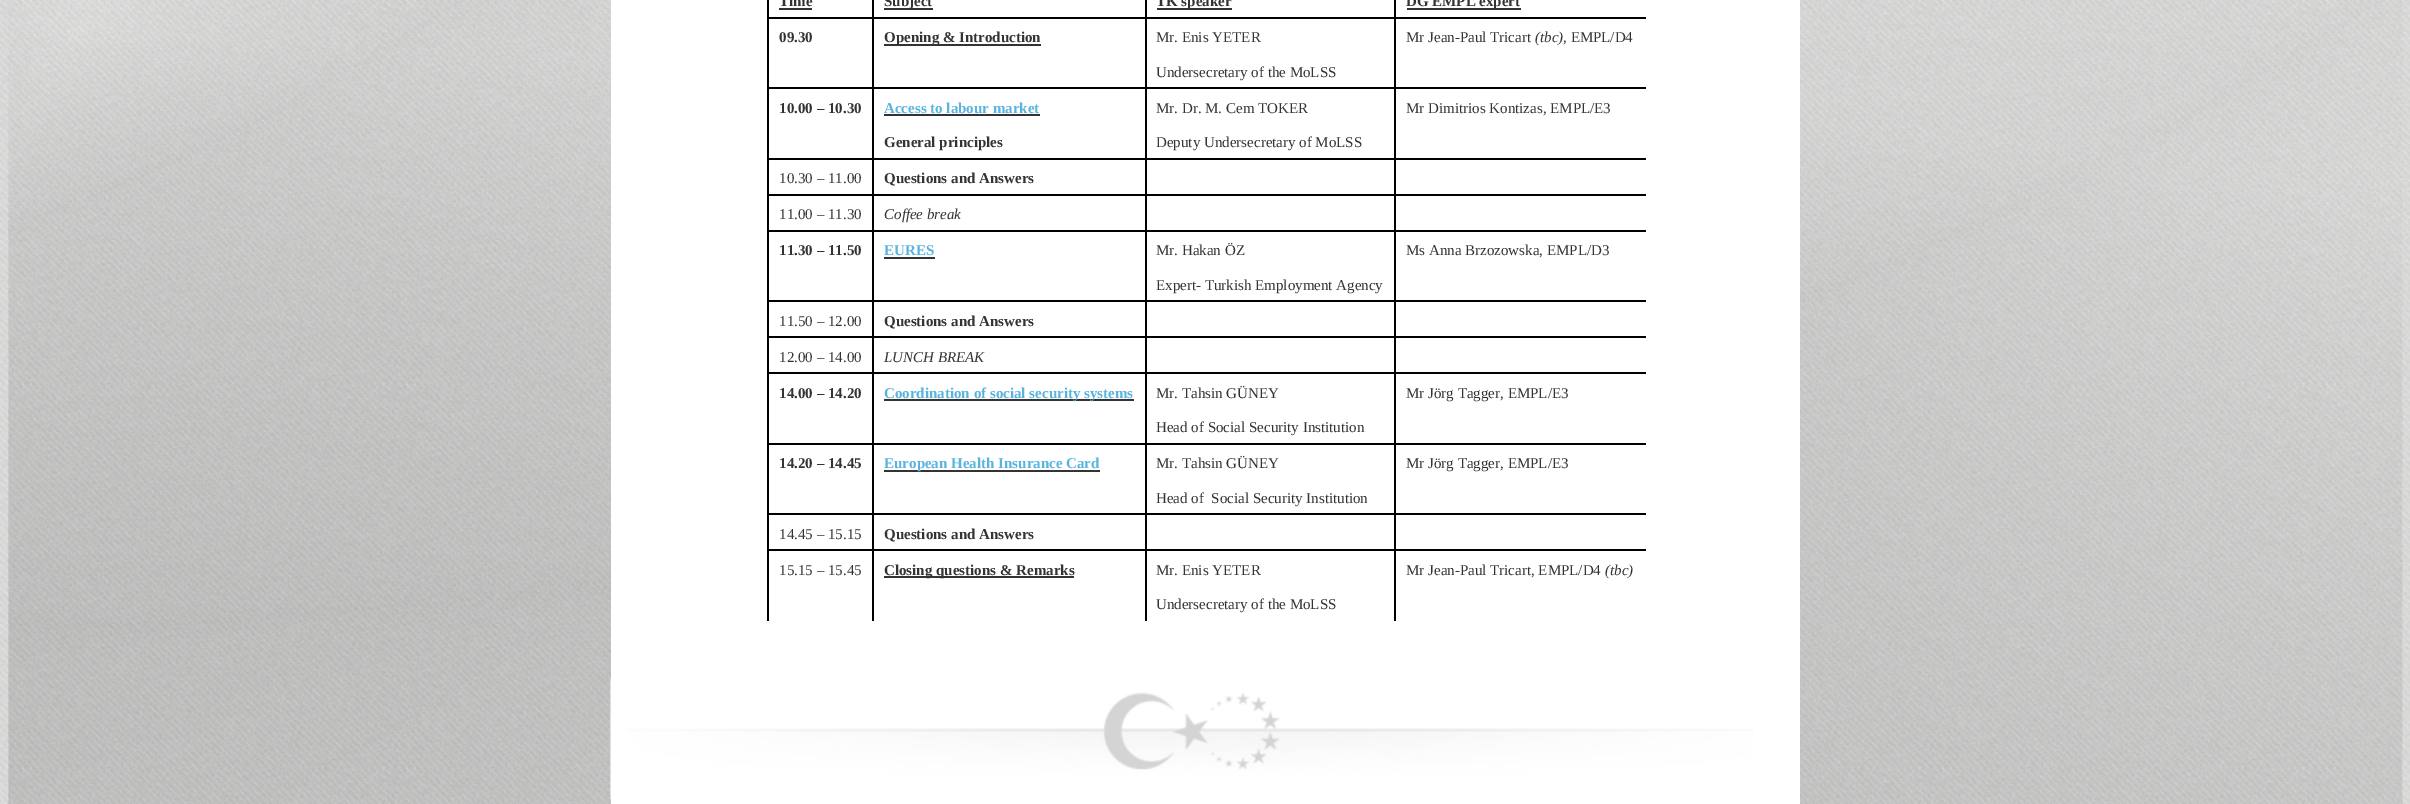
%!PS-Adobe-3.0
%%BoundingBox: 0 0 2410 804
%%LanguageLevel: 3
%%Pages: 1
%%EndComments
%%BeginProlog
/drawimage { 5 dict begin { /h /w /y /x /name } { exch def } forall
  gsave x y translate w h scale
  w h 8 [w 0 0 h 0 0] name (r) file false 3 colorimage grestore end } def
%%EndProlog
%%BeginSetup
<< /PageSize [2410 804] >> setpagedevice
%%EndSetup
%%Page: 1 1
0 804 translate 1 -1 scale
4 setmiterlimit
1 setgray
0 0 2410 804 rectfill
(images/1.raw) 0 0 2410 804 drawimage
(images/2.raw) 0 0 2410 804 drawimage
611 0 1189 804 rectfill
0.2 setgray
779 8 33 2 rectfill
0 setgray
1394 17 252 2 rectfill
1394 87 252 2 rectfill
1394 158 252 2 rectfill
1394 194 252 2 rectfill
1394 230 252 2 rectfill
1394 300 252 2 rectfill
1394 336 252 2 rectfill
1394 372 252 2 rectfill
1394 443 252 2 rectfill
1394 513 252 2 rectfill
1394 549 252 2 rectfill
1394 549 2 72 rectfill
1145 549 250 2 rectfill
1394 513 2 38 rectfill
1145 513 250 2 rectfill
1394 443 2 72 rectfill
1145 443 250 2 rectfill
1394 372 2 72 rectfill
1145 372 250 2 rectfill
1394 336 2 38 rectfill
1145 336 250 2 rectfill
1394 300 2 38 rectfill
1145 300 250 2 rectfill
1394 230 2 72 rectfill
1145 230 250 2 rectfill
1394 194 2 37 rectfill
1145 194 250 2 rectfill
1394 158 2 37 rectfill
1145 158 250 2 rectfill
1394 87 2 72 rectfill
1145 87 250 2 rectfill
1394 17 2 72 rectfill
1145 17 250 2 rectfill
1145 549 2 72 rectfill
872 549 274 2 rectfill
1145 513 2 38 rectfill
872 513 274 2 rectfill
1145 443 2 72 rectfill
872 443 274 2 rectfill
1145 372 2 72 rectfill
872 372 274 2 rectfill
1145 336 2 38 rectfill
872 336 274 2 rectfill
1145 300 2 38 rectfill
872 300 274 2 rectfill
1145 230 2 72 rectfill
872 230 274 2 rectfill
1145 194 2 37 rectfill
872 194 274 2 rectfill
1145 158 2 37 rectfill
872 158 274 2 rectfill
1145 87 2 72 rectfill
872 87 274 2 rectfill
1145 17 2 72 rectfill
872 17 274 2 rectfill
872 549 2 72 rectfill
767 549 106 2 rectfill
872 513 2 38 rectfill
767 513 106 2 rectfill
872 443 2 72 rectfill
767 443 106 2 rectfill
872 372 2 72 rectfill
767 372 106 2 rectfill
872 336 2 38 rectfill
767 336 106 2 rectfill
872 300 2 38 rectfill
767 300 106 2 rectfill
872 230 2 72 rectfill
767 230 106 2 rectfill
872 194 2 37 rectfill
767 194 106 2 rectfill
872 158 2 37 rectfill
767 158 106 2 rectfill
872 87 2 72 rectfill
767 87 106 2 rectfill
872 17 2 72 rectfill
767 17 106 2 rectfill
872 0 2 18 rectfill
0.2 setgray
884 8 49 2 rectfill
0 setgray
1145 0 2 18 rectfill
0.2 setgray
1157 8 75 2 rectfill
0 setgray
1394 0 2 18 rectfill
0.2 setgray
1407 8 114 2 rectfill
0 setgray
767 549 2 72 rectfill
767 513 2 38 rectfill
767 443 2 72 rectfill
767 372 2 72 rectfill
767 336 2 38 rectfill
767 300 2 38 rectfill
767 230 2 72 rectfill
767 194 2 37 rectfill
767 158 2 37 rectfill
767 87 2 72 rectfill
767 0 2 89 rectfill
0.2 setgray
884 44 157 2 rectfill
884 114 156 2 rectfill
884 257 51 2 rectfill
884 399 250 2 rectfill
884 470 216 2 rectfill
884 576 190 2 rectfill
(images/3.raw) 610 679 1143 120 drawimage
/LiberationSerif-Bold [15 0 0 -15 0 0] selectfont
779 6 moveto (Time) show
884 6 moveto (Subject) show
1156 6 moveto (TK speaker) show
1406 6 moveto (DG EMPL expert) show
779 42 moveto (09.30) show
884 42 moveto (Opening & Introduction) show
/LiberationSerif-Regular [15 0 0 -15 0 0] selectfont
1156 42 moveto (Mr. Enis YETER) show
1156 77 moveto (Undersecretary of the MoLSS) show
1406 42 moveto (Mr Jean-Paul Tricart) show
/LiberationSerif-Italic [15 0 0 -15 0 0] selectfont
1535 42 moveto (\(tbc\)) show
/LiberationSerif-Regular [15 0 0 -15 0 0] selectfont
1563 42 moveto (, EMPL/D4) show
/LiberationSerif-Bold [15 0 0 -15 0 0] selectfont
779 113 moveto (10.00 – 10.30) show
0.341 0.702 0.875 setrgbcolor
884 113 moveto (Access to labour market) show
0.2 setgray
884 147 moveto (General principles) show
/LiberationSerif-Regular [15 0 0 -15 0 0] selectfont
1156 113 moveto (Mr. Dr. M. Cem TOKER) show
1156 147 moveto (Deputy Undersecretary of MoLSS) show
1406 113 moveto (Mr Dimitrios Kontizas, EMPL/E3) show
779 183 moveto (10.30 – 11.00) show
/LiberationSerif-Bold [15 0 0 -15 0 0] selectfont
884 183 moveto (Questions and Answers) show
/LiberationSerif-Regular [15 0 0 -15 0 0] selectfont
779 219 moveto (11.00 – 11.30) show
/LiberationSerif-Italic [15 0 0 -15 0 0] selectfont
884 219 moveto (Coffee break) show
/LiberationSerif-Bold [15 0 0 -15 0 0] selectfont
779 255 moveto (11.30 – 11.50) show
0.341 0.702 0.875 setrgbcolor
884 255 moveto (EURES) show
/LiberationSerif-Regular [15 0 0 -15 0 0] selectfont
0.2 setgray
1156 255 moveto (Mr. Hakan ÖZ) show
1156 290 moveto (Expert- Turkish Employment Agency) show
1406 255 moveto (Ms Anna Brzozowska, EMPL/D3) show
779 326 moveto (11.50 – 12.00) show
/LiberationSerif-Bold [15 0 0 -15 0 0] selectfont
884 326 moveto (Questions and Answers) show
/LiberationSerif-Regular [15 0 0 -15 0 0] selectfont
779 362 moveto (12.00 – 14.00) show
/LiberationSerif-Italic [15 0 0 -15 0 0] selectfont
884 362 moveto (LUNCH BREAK) show
/LiberationSerif-Bold [15 0 0 -15 0 0] selectfont
779 398 moveto (14.00 – 14.20) show
0.341 0.702 0.875 setrgbcolor
884 398 moveto (Coordination of social security systems) show
/LiberationSerif-Regular [15 0 0 -15 0 0] selectfont
0.2 setgray
1156 398 moveto (Mr. Tahsin GÜNEY) show
1156 432 moveto (Head of Social Security Institution) show
1406 398 moveto (Mr Jörg Tagger, EMPL/E3) show
/LiberationSerif-Bold [15 0 0 -15 0 0] selectfont
779 468 moveto (14.20 – 14.45) show
0.341 0.702 0.875 setrgbcolor
884 468 moveto (European Health Insurance Card) show
/LiberationSerif-Regular [15 0 0 -15 0 0] selectfont
0.2 setgray
1156 468 moveto (Mr. Tahsin GÜNEY) show
1156 503 moveto (Head of  Social Security Institution) show
1406 468 moveto (Mr Jörg Tagger, EMPL/E3) show
779 539 moveto (14.45 – 15.15) show
/LiberationSerif-Bold [15 0 0 -15 0 0] selectfont
884 539 moveto (Questions and Answers) show
/LiberationSerif-Regular [15 0 0 -15 0 0] selectfont
779 575 moveto (15.15 – 15.45) show
/LiberationSerif-Bold [15 0 0 -15 0 0] selectfont
884 575 moveto (Closing questions & Remarks) show
/LiberationSerif-Regular [15 0 0 -15 0 0] selectfont
1156 575 moveto (Mr. Enis YETER) show
1156 609 moveto (Undersecretary of the MoLSS) show
1406 575 moveto (Mr Jean-Paul Tricart, EMPL/D4) show
/LiberationSerif-Italic [15 0 0 -15 0 0] selectfont
1605 575 moveto (\(tbc\)) show
showpage
%%EOF
